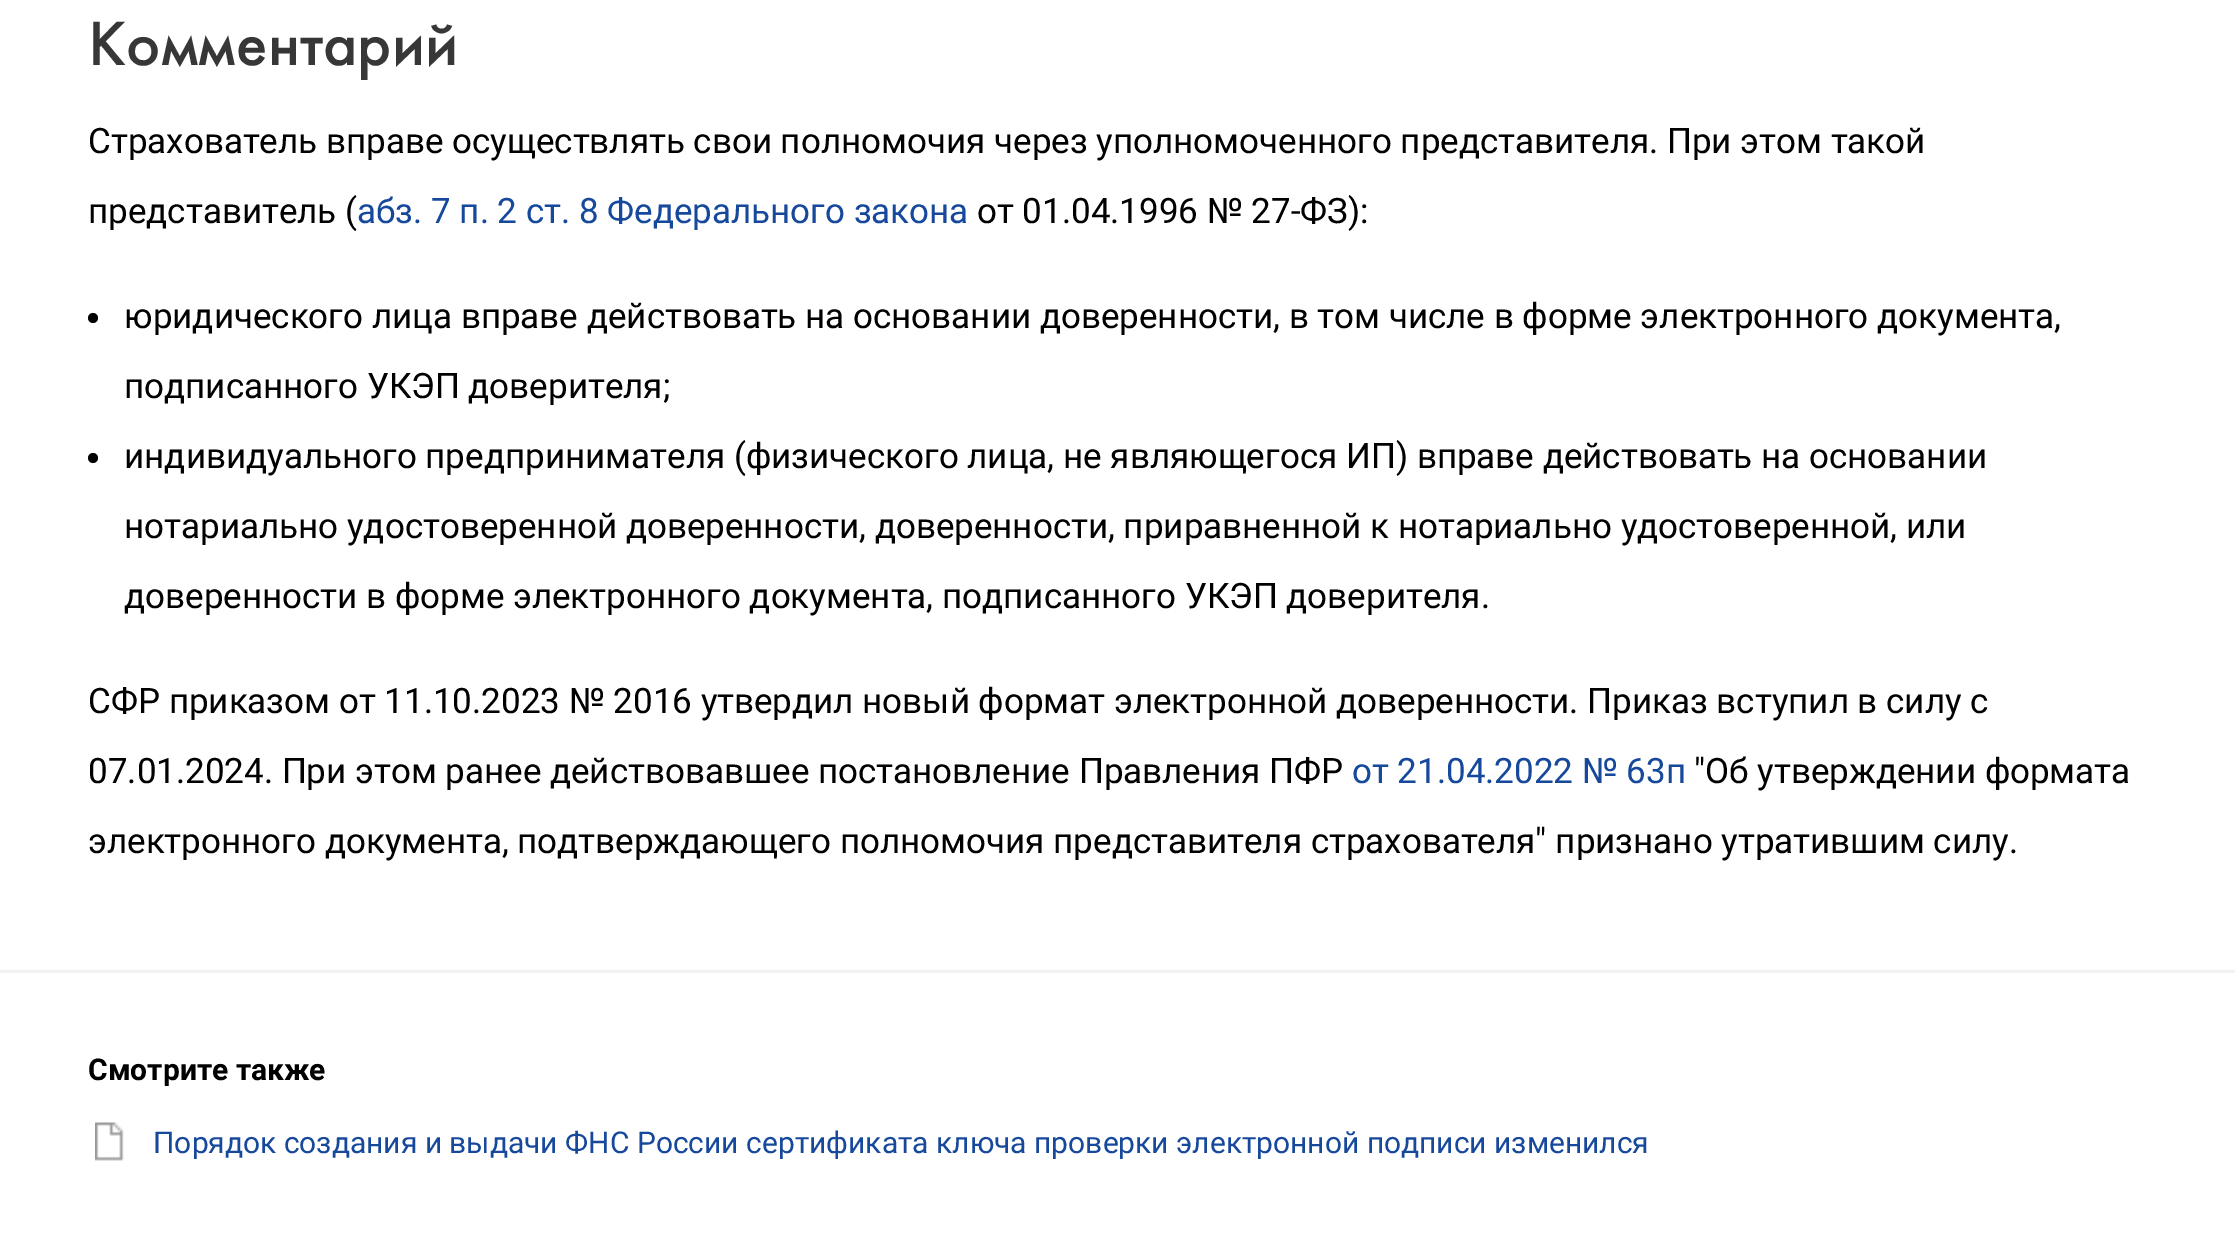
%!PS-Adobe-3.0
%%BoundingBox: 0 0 2235 1256
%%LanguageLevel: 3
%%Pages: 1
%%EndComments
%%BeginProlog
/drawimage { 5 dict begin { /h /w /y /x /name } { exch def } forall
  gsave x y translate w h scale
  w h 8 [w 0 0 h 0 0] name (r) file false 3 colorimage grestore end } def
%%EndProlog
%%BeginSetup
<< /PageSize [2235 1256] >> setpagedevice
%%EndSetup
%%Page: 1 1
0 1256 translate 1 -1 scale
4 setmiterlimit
1 setgray
0 0 2235 1256 rectfill
0 setgray
newpath 93 318 5 0 360 arc closepath fill
newpath 93 458 5 0 360 arc closepath fill
0.949 setgray
0 970 2235 3 rectfill
(images/1.raw) 95 1122 29 39 drawimage
/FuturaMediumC-Medium [65 0 0 -65 0 0] selectfont
0.216 setgray
88 65 moveto (Комментарий) show
/Roboto-Regular [35 0 0 -35 0 0] selectfont
0 setgray
88 153 moveto (Страхователь вправе осуществлять свои полномочия через уполномоченного представителя. При этом такой) show
88 223 moveto (представитель \() show
0.086 0.282 0.608 setrgbcolor
357 223 moveto (абз. 7 п. 2 ст. 8 Федерального закона) show
0 setgray
977 223 moveto (от 01.04.1996 № 27-ФЗ\):) show
124 328 moveto (юридического лица вправе действовать на основании доверенности, в том числе в форме электронного документа,) show
124 398 moveto (подписанного УКЭП доверителя;) show
124 468 moveto (индивидуального предпринимателя \(физического лица, не являющегося ИП\) вправе действовать на основании) show
124 538 moveto (нотариально удостоверенной доверенности, доверенности, приравненной к нотариально удостоверенной, или) show
124 608 moveto (доверенности в форме электронного документа, подписанного УКЭП доверителя.) show
88 713 moveto (СФР приказом от 11.10.2023 № 2016 утвердил новый формат электронной доверенности. Приказ вступил в силу с) show
88 783 moveto (07.01.2024. При этом ранее действовавшее постановление Правления ПФР) show
0.086 0.282 0.608 setrgbcolor
1352 783 moveto (от 21.04.2022 № 63п) show
0 setgray
1694 783 moveto ("Об утверждении формата) show
88 853 moveto (электронного документа, подтверждающего полномочия представителя страхователя" признано утратившим силу.) show
/Roboto-Bold [30 0 0 -30 0 0] selectfont
88 1080 moveto (Смотрите также) show
/Roboto-Regular [30 0 0 -30 0 0] selectfont
0.086 0.282 0.608 setrgbcolor
153 1153 moveto (Порядок создания и выдачи ФНС России сертификата ключа проверки электронной подписи изменился) show
showpage
%%EOF
